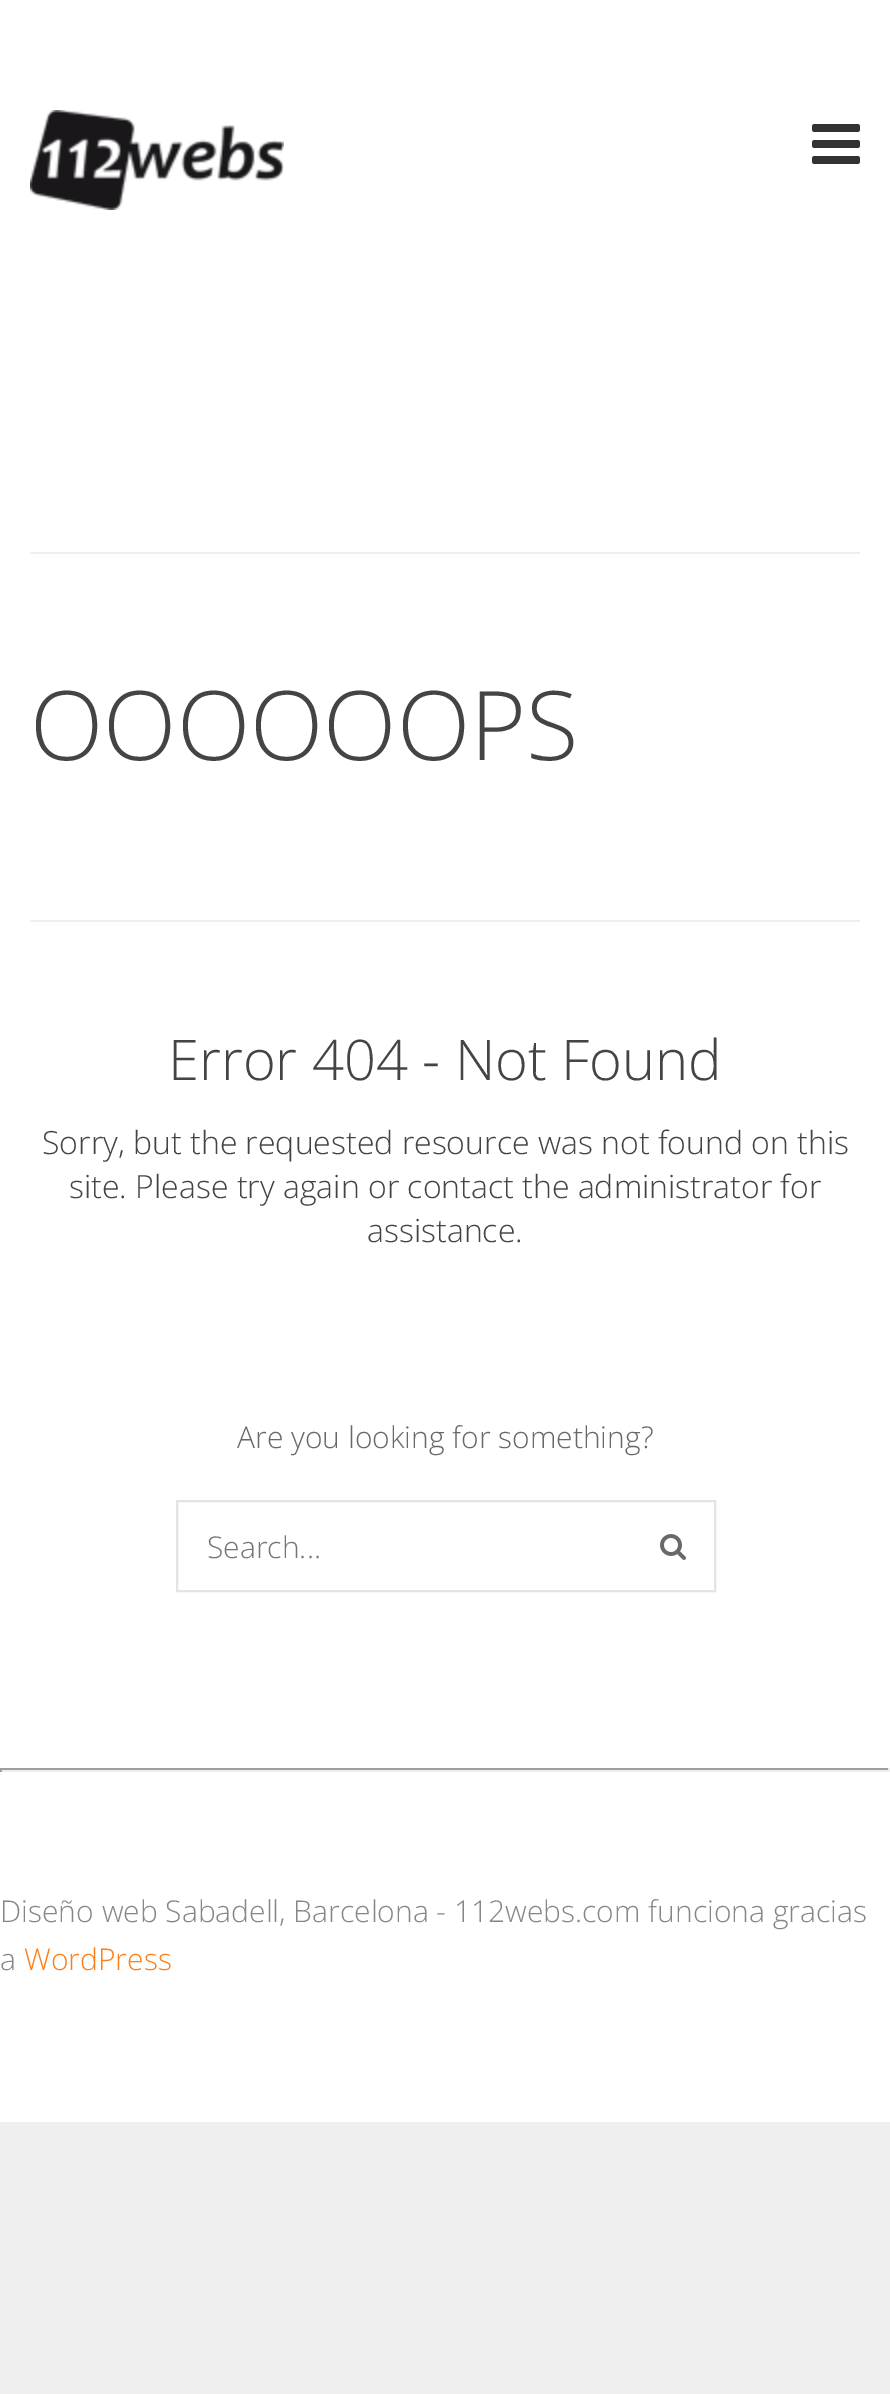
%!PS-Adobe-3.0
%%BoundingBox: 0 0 890 2394
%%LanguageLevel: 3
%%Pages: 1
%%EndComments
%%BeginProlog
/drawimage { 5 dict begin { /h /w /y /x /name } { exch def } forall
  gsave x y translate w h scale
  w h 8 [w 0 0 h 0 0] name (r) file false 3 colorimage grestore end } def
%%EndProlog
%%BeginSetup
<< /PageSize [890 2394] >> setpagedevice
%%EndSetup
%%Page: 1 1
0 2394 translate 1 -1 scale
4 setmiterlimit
0.937 setgray
0 0 890 2394 rectfill
1 setgray
0 0 890 2122 rectfill
(images/1.raw) 30 110 254 100 drawimage
(images/2.raw) 812 124 48 40 drawimage
0.937 setgray
30 552 830 2 rectfill
30 920 830 2 rectfill
0.894 setgray
2 setlinewidth
177 1501 538 90 rectstroke
(images/3.raw) 660 1534 26 26 drawimage
0.624 setgray
0 1768 890 2 rectfill
0.933 setgray
888 1768 2 4 rectfill
0 1770 890 2 rectfill
0.624 setgray
0 1768 2 4 rectfill
/OpenSans-Light [96 0 0 -96 0 0] selectfont
0.267 setgray
30 760 moveto (OOOOOOPS) show
/OpenSans-Light [56 0 0 -56 0 0] selectfont
168 1080 moveto (Error 404 - Not Found) show
/OpenSans-Light [32 0 0 -32 0 0] selectfont
42 1154 moveto (Sorry, but the requested resource was not found on this) show
69 1198 moveto (site. Please try again or contact the administrator for) show
367 1242 moveto (assistance.) show
/OpenSans-Light [30 0 0 -30 0 0] selectfont
0.408 setgray
237 1448 moveto (Are you looking for something?) show
0.459 setgray
207 1558 moveto (Search...) show
0.525 setgray
0 1922 moveto (Diseño web Sabadell, Barcelona - 112webs.com funciona gracias) show
0 1970 moveto (a) show
0.996 0.494 0.09 setrgbcolor
24 1970 moveto (WordPress) show
showpage
%%EOF
